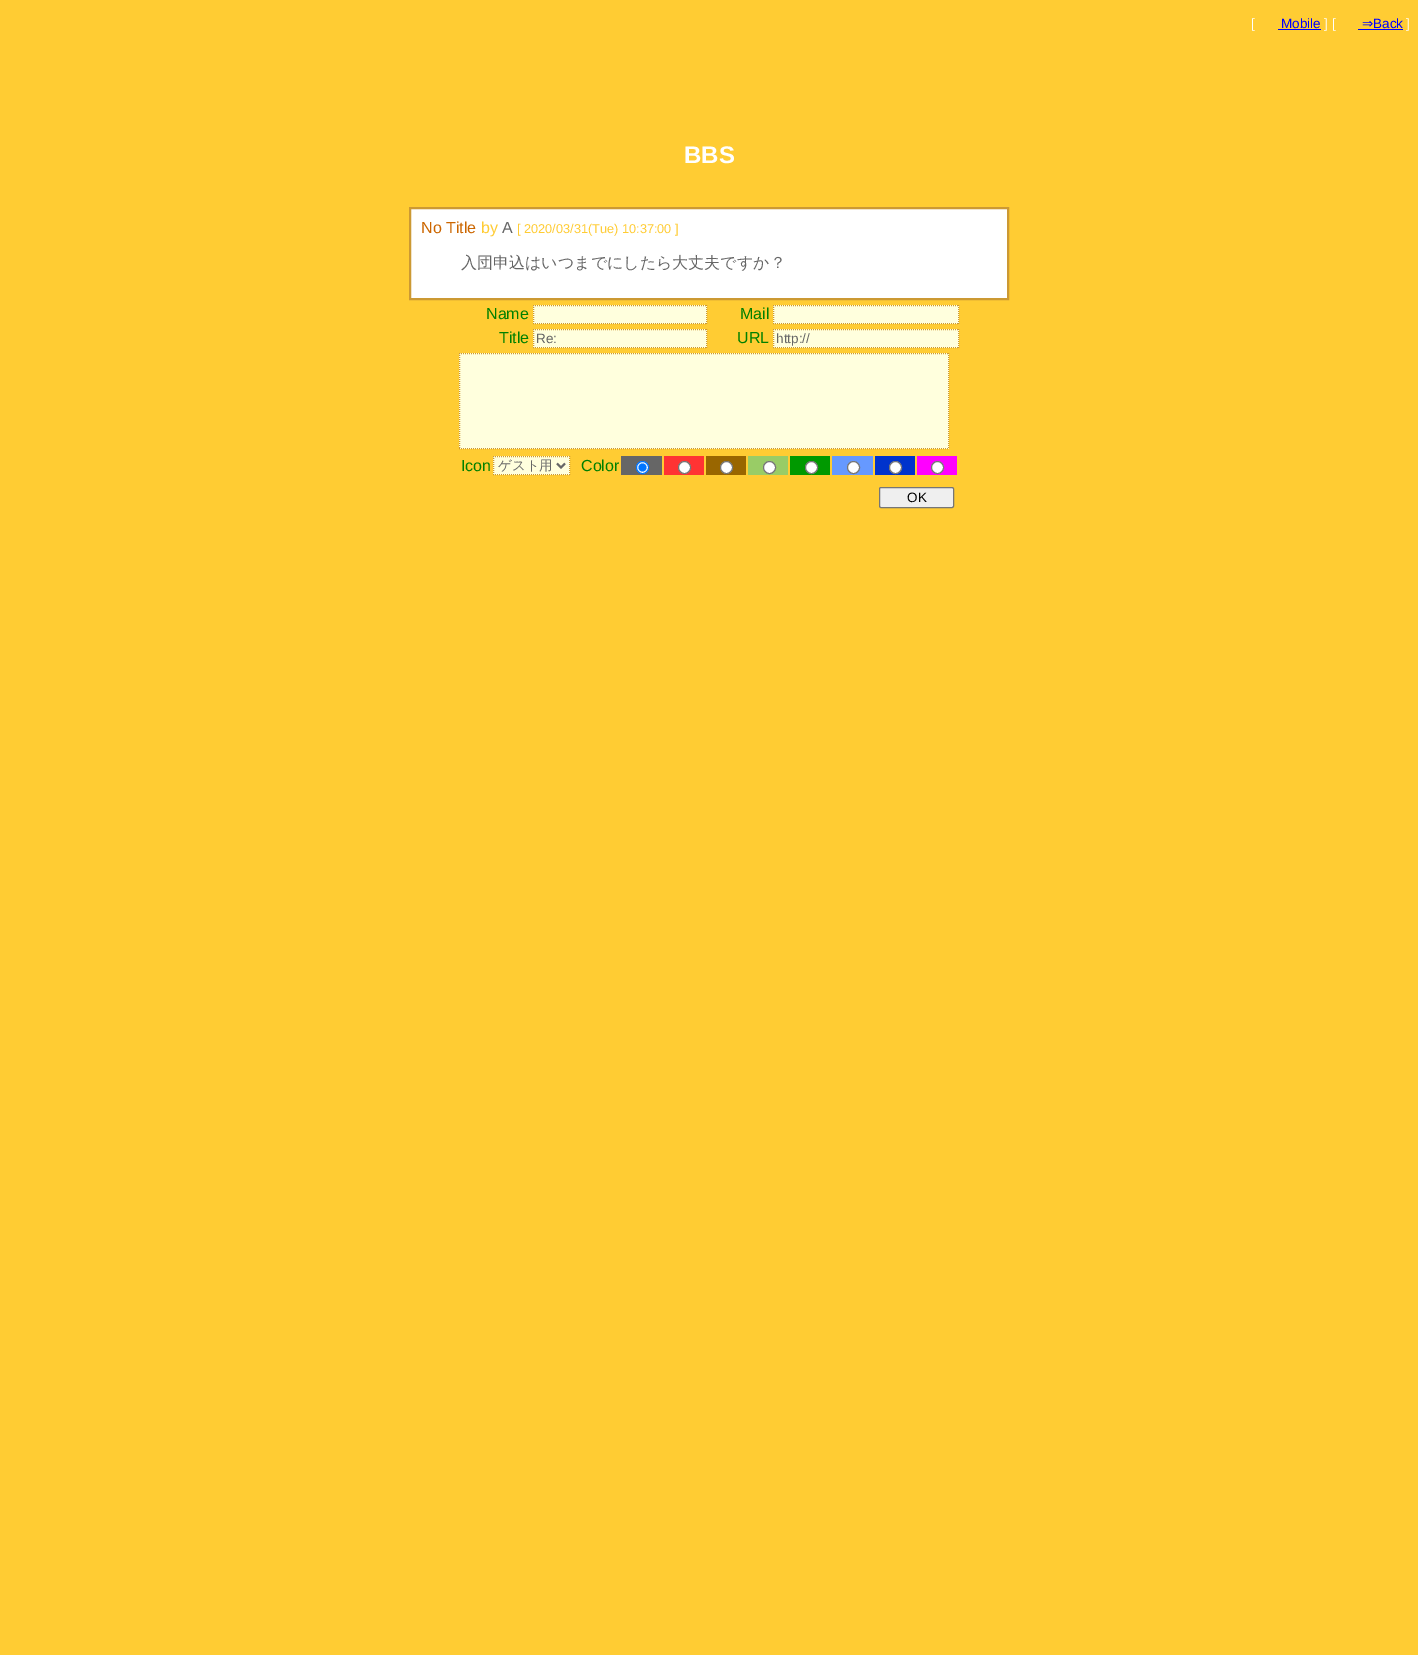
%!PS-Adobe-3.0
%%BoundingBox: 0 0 1418 1655
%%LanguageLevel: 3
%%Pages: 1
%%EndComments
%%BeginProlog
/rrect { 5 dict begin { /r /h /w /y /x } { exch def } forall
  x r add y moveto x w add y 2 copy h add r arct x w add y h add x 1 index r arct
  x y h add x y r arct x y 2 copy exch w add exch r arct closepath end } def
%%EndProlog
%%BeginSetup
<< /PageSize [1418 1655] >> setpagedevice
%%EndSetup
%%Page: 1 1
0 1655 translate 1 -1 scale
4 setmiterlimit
1 0.8 0.2 setrgbcolor
0 0 1418 1655 rectfill
0 0 1 setrgbcolor
1278 29 43 1 rectfill
1358 29 45 1 rectfill
1 setgray
newpath 410 208 moveto 1008 208 lineto 1008 299 lineto 410 299 lineto closepath gsave fill grestore
0.8 0.6 0.2 setrgbcolor
2 setlinewidth
stroke
1 1 0.867 setrgbcolor
533 305 174 19 rectfill
0.8 0.6 0.2 setrgbcolor
1 setlinewidth
[1 1] 0 setdash
newpath 533 305.5 moveto 707 305.5 lineto stroke
newpath 706.5 305 moveto 706.5 324 lineto stroke
newpath 533 323.5 moveto 707 323.5 lineto stroke
newpath 533.5 305 moveto 533.5 324 lineto stroke
1 1 0.867 setrgbcolor
773 305 186 19 rectfill
0.8 0.6 0.2 setrgbcolor
newpath 773 305.5 moveto 959 305.5 lineto stroke
newpath 958.5 305 moveto 958.5 324 lineto stroke
newpath 773 323.5 moveto 959 323.5 lineto stroke
newpath 773.5 305 moveto 773.5 324 lineto stroke
1 1 0.867 setrgbcolor
533 329 174 19 rectfill
0.8 0.6 0.2 setrgbcolor
newpath 533 329.5 moveto 707 329.5 lineto stroke
newpath 706.5 329 moveto 706.5 348 lineto stroke
newpath 533 347.5 moveto 707 347.5 lineto stroke
newpath 533.5 329 moveto 533.5 348 lineto stroke
1 1 0.867 setrgbcolor
773 329 186 19 rectfill
0.8 0.6 0.2 setrgbcolor
newpath 773 329.5 moveto 959 329.5 lineto stroke
newpath 958.5 329 moveto 958.5 348 lineto stroke
newpath 773 347.5 moveto 959 347.5 lineto stroke
newpath 773.5 329 moveto 773.5 348 lineto stroke
1 1 0.867 setrgbcolor
459 353 490 96 rectfill
0.8 0.6 0.2 setrgbcolor
newpath 459 353.5 moveto 949 353.5 lineto stroke
newpath 948.5 353 moveto 948.5 449 lineto stroke
newpath 459 448.5 moveto 949 448.5 lineto stroke
newpath 459.5 353 moveto 459.5 449 lineto stroke
1 1 0.867 setrgbcolor
493 456 77 19 rectfill
0.8 0.6 0.2 setrgbcolor
newpath 493 456.5 moveto 570 456.5 lineto stroke
newpath 569.5 456 moveto 569.5 475 lineto stroke
newpath 493 474.5 moveto 570 474.5 lineto stroke
newpath 493.5 456 moveto 493.5 475 lineto stroke
0.4 setgray
2 setlinewidth
[] 0 setdash
newpath 557 463.5 moveto 561 467.5 lineto 565 463.5 lineto stroke
621 456 41 19 rectfill
1 setgray
newpath 642.5 467.5 6 0 360 arc closepath gsave fill grestore
0 0.459 1 setrgbcolor
1 setlinewidth
stroke
newpath 642.5 467.5 4 0 360 arc closepath fill
1 0.2 0.2 setrgbcolor
664 456 40 19 rectfill
1 setgray
newpath 684.5 467.5 6 0 360 arc closepath gsave fill grestore
0.463 setgray
stroke
0.6 0.4 0 setrgbcolor
706 456 40 19 rectfill
1 setgray
newpath 726.5 467.5 6 0 360 arc closepath gsave fill grestore
0.463 setgray
stroke
0.6 0.8 0.4 setrgbcolor
748 456 40 19 rectfill
1 setgray
newpath 769.5 467.5 6 0 360 arc closepath gsave fill grestore
0.463 setgray
stroke
0 0.6 0 setrgbcolor
790 456 40 19 rectfill
1 setgray
newpath 811.5 467.5 6 0 360 arc closepath gsave fill grestore
0.463 setgray
stroke
0.4 0.6 1 setrgbcolor
832 456 41 19 rectfill
1 setgray
newpath 853.5 467.5 6 0 360 arc closepath gsave fill grestore
0.463 setgray
stroke
0 0.2 0.8 setrgbcolor
875 456 40 19 rectfill
1 setgray
newpath 895.5 467.5 6 0 360 arc closepath gsave fill grestore
0.463 setgray
stroke
1 0 1 setrgbcolor
917 456 40 19 rectfill
1 setgray
newpath 937.5 467.5 6 0 360 arc closepath gsave fill grestore
0.463 setgray
stroke
0.937 setgray
879.5 487.5 74 20 1.5 rrect gsave fill grestore
0.463 setgray
stroke
/LiberationSans-Regular [13.5 0 0 -13.5 0 0] selectfont
1 setgray
1251 28 moveto ([) show
0 0 1 setrgbcolor
1281 28 moveto (Mobile) show
1 setgray
1324 28 moveto (] [) show
/DejaVuSans-Regular [13.5 0 0 -13.5 0 0] selectfont
0 0 1 setrgbcolor
1362 28 moveto (⇒) show
/LiberationSans-Regular [13.5 0 0 -13.5 0 0] selectfont
1373 28 moveto (Back) show
1 setgray
1406 28 moveto (]) show
/LiberationSans-Bold [24 0 0 -24 0 0] selectfont
684 163 moveto (BBS) show
/LiberationSans-Regular [16 0 0 -16 0 0] selectfont
0.8 0.4 0 setrgbcolor
421 233 moveto (No Title) show
1 0.8 0.2 setrgbcolor
481 233 moveto (by) show
0.4 setgray
502 233 moveto (A) show
/LiberationSans-Regular [12.75 0 0 -12.75 0 0] selectfont
1 0.8 0.2 setrgbcolor
517 233 moveto ([ 2020/03/31\(Tue\) 10:37:00 ]) show
/WenQuanYiZenHei-Medium [16 0 0 -16 0 0] selectfont
0.4 setgray
461 268 moveto (入団申込はいつまでにしたら大丈夫ですか？) show
/LiberationSans-Regular [16 0 0 -16 0 0] selectfont
0 0.502 0 setrgbcolor
486 319 moveto (Name) show
740 319 moveto (Mail) show
499 343 moveto (Title) show
/LiberationSans-Regular [13.5 0 0 -13.5 0 0] selectfont
0.4 setgray
536 343 moveto (Re:) show
/LiberationSans-Regular [16 0 0 -16 0 0] selectfont
0 0.502 0 setrgbcolor
737 343 moveto (URL) show
/LiberationSans-Regular [13.5 0 0 -13.5 0 0] selectfont
0.4 setgray
776 343 moveto (http://) show
/LiberationSans-Regular [16 0 0 -16 0 0] selectfont
0 0.502 0 setrgbcolor
461 471 moveto (Icon) show
/WenQuanYiZenHei-Medium [13.5 0 0 -13.5 0 0] selectfont
0.4 setgray
498 470 moveto (ゲスト用) show
/LiberationSans-Regular [16 0 0 -16 0 0] selectfont
0 0.502 0 setrgbcolor
581 471 moveto (Color) show
/LiberationSans-Regular [13.5 0 0 -13.5 0 0] selectfont
0 setgray
907 502 moveto (OK) show
showpage
%%EOF
